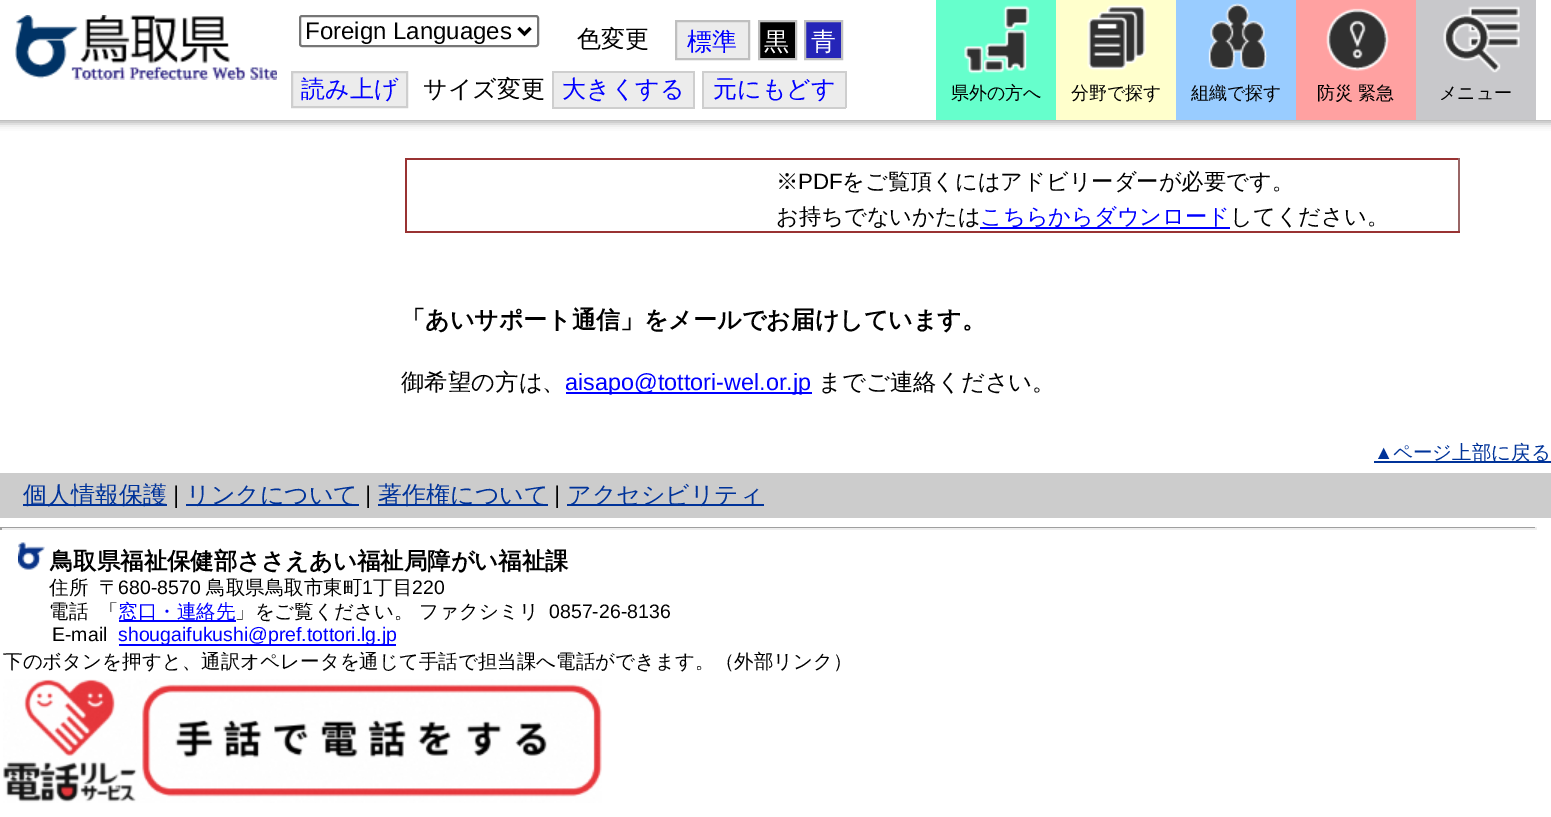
%!PS-Adobe-3.0
%%BoundingBox: 0 0 1551 817
%%LanguageLevel: 3
%%Pages: 1
%%EndComments
%%BeginProlog
/setalpha { dup .setfillconstantalpha .setstrokeconstantalpha } def
/rrect { 5 dict begin { /r /h /w /y /x } { exch def } forall
  x r add y moveto x w add y 2 copy h add r arct x w add y h add x 1 index r arct
  x y h add x y r arct x y 2 copy exch w add exch r arct closepath end } def
/softshadow { 12 dict begin { /a /b /q /h /w /y /x } { exch def } forall gsave /was 0 def
  9 -2 -9 { dup b mul 4 div /e exch def 1 sub .425 mul 2.718 exch exp 1 add a .99 .min exch div /now exch def
    1 1 now sub 1 was sub div sub setalpha /was now def
    w h .min e 2 mul add 0 gt { x e sub y e sub w e 2 mul add h e 2 mul add
      q e add b .6 mul add w h .min 2 div e add .min 0 .max rrect fill } if } for grestore end } def
/drawimage { 5 dict begin { /h /w /y /x /name } { exch def } forall
  gsave x y translate w h scale
  w h 8 [w 0 0 h 0 0] name (r) file false 3 colorimage grestore end } def
%%EndProlog
%%BeginSetup
<< /PageSize [1551 817] /PageUsesTransparency true >> setpagedevice
%%EndSetup
%%Page: 1 1
0 .pushpdf14devicefilter
0 817 translate 1 -1 scale
4 setmiterlimit
1 setgray
0 0 1551 817 rectfill
0 setgray
-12 2 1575 120 0 4 0.1 softshadow
-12 2 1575 120 0 4 0.1 softshadow
-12 2 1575 120 0 4 0.1 softshadow
-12 2 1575 120 0 4 0.1 softshadow
1 setgray
0 0 1551 120 rectfill
(images/1.raw) 15 15 262 65 drawimage
0.463 setgray
2 setlinewidth
300 16 238 30 2 rrect stroke
0 setgray
3 setlinewidth
newpath 518.5 28 moveto 524.5 34 lineto 530.5 28 lineto stroke
0.925 setgray
newpath 676 21 moveto 749 21 lineto 749 59 lineto 676 59 lineto closepath gsave fill grestore
0.749 setgray
2 setlinewidth
stroke
0 setgray
newpath 759 21 moveto 796 21 lineto 796 59 lineto 759 59 lineto closepath gsave fill grestore
0.749 setgray
stroke
0.145 0.145 0.722 setrgbcolor
newpath 805 21 moveto 842 21 lineto 842 59 lineto 805 59 lineto closepath gsave fill grestore
0.749 setgray
stroke
0.925 setgray
newpath 292 72 moveto 407 72 lineto 407 107 lineto 292 107 lineto closepath gsave fill grestore
0.808 setgray
stroke
0.925 setgray
554 73 139 34 rectfill
0.808 setgray
552 71 143 2 rectfill
552 107 35 2 rectfill
552 71 2 37 rectfill
693 71 2 37 rectfill
587 107 108 2 rectfill
0.925 setgray
704 73 141 34 rectfill
0.808 setgray
702 71 144 2 rectfill
702 107 35 2 rectfill
702 71 2 37 rectfill
845 71 2 37 rectfill
737 107 109 2 rectfill
0.4 1 0.8 setrgbcolor
936 0 120 120 rectfill
(images/2.raw) 964 5 66 69 drawimage
1 1 0.8 setrgbcolor
1056 0 120 120 rectfill
(images/3.raw) 1087 4 60 67 drawimage
0.6 0.8 1 setrgbcolor
1176 0 120 120 rectfill
(images/4.raw) 1208 3 60 67 drawimage
1 0.631 0.631 setrgbcolor
1296 0 120 120 rectfill
(images/5.raw) 1326 8 64 63 drawimage
0.784 0.784 0.796 setrgbcolor
1416 0 120 120 rectfill
(images/6.raw) 1443 6 77 67 drawimage
0.6 0.2 0.2 setrgbcolor
405 158 1055 2 rectfill
0.6 0.4 0.4 setrgbcolor
1458 158 2 75 rectfill
0.6 0.2 0.2 setrgbcolor
405 231 1055 2 rectfill
405 158 2 75 rectfill
0 0 1 setrgbcolor
980 227 250 2 rectfill
566 392 246 2 rectfill
0 0.2 0.6 setrgbcolor
1374 461 177 2 rectfill
0.8 setgray
0 473 1551 45 rectfill
0 0.2 0.6 setrgbcolor
23 504 144 2 rectfill
186 504 173 2 rectfill
378 504 170 2 rectfill
567 504 197 2 rectfill
0.624 setgray
0 527 1536 1 rectfill
0.933 setgray
1535 527 2 3 rectfill
0 528 1536 2 rectfill
0.624 setgray
0 527 2 3 rectfill
(images/7.raw) 18 542 27 28 drawimage
0 0 1 setrgbcolor
119 620 117 2 rectfill
119 644 277 2 rectfill
(images/8.raw) 3 679 599 124 drawimage
/LiberationSans-Regular [24 0 0 -24 0 0] selectfont
0 setgray
305 39 moveto (Foreign Languages) show
/WenQuanYiZenHei-Medium [24 0 0 -24 0 0] selectfont
577 47 moveto (色変更) show
/WenQuanYiZenHei-Medium [25 0 0 -25 0 0] selectfont
0 0 1 setrgbcolor
687 50 moveto (標準) show
1 setgray
764 50 moveto (黒) show
811 50 moveto (青) show
/WenQuanYiZenHei-Medium [24 0 0 -24 0 0] selectfont
0 0 1 setrgbcolor
301 97 moveto (読み上げ) show
0 setgray
423 97 moveto (サイズ変更) show
0 0 1 setrgbcolor
562 97 moveto (大きくする) show
713 97 moveto (元にもどす) show
/WenQuanYiZenHei-Medium [18 0 0 -18 0 0] selectfont
0 setgray
951 99 moveto (県外の方へ) show
1071 99 moveto (分野で探す) show
1191 99 moveto (組織で探す) show
1317 99 moveto (防災 緊急) show
1439 99 moveto (メニュー) show
/WenQuanYiZenHei-Medium [22.25 0 0 -22.25 0 0] selectfont
776 189 moveto (※) show
/LiberationSans-Regular [22.25 0 0 -22.25 0 0] selectfont
798 189 moveto (PDF) show
/WenQuanYiZenHei-Medium [22.25 0 0 -22.25 0 0] selectfont
842 189 moveto (をご覧頂くにはアドビリーダーが必要です。) show
776 224 moveto (お持ちでないかたは) show
0 0 1 setrgbcolor
980 224 moveto (こちらからダウンロード) show
0 setgray
1230 224 moveto (してください。) show
/WenQuanYiZenHei-Bold [24 0 0 -24 0 0] selectfont
401 328 moveto (「あいサポート通信」をメールでお届けしています。) show
/WenQuanYiZenHei-Medium [23.4 0 0 -23.4 0 0] selectfont
401 390 moveto (御希望の方は、) show
/LiberationSans-Regular [23.4 0 0 -23.4 0 0] selectfont
0 0 1 setrgbcolor
565 390 moveto (aisapo@tottori-wel.or.jp) show
/WenQuanYiZenHei-Medium [23.4 0 0 -23.4 0 0] selectfont
0 setgray
818 390 moveto (までご連絡ください。) show
/LiberationSans-Regular [19.5 0 0 -19.5 0 0] selectfont
0 0.2 0.6 setrgbcolor
1374 459 moveto (▲) show
/WenQuanYiZenHei-Medium [19.5 0 0 -19.5 0 0] selectfont
1393 459 moveto (ページ上部に戻る) show
/WenQuanYiZenHei-Medium [24 0 0 -24 0 0] selectfont
23 503 moveto (個人情報保護) show
/LiberationSans-Regular [24 0 0 -24 0 0] selectfont
0 setgray
173 503 moveto (|) show
/WenQuanYiZenHei-Medium [24 0 0 -24 0 0] selectfont
0 0.2 0.6 setrgbcolor
186 503 moveto (リンクについて) show
/LiberationSans-Regular [24 0 0 -24 0 0] selectfont
0 setgray
365 503 moveto (|) show
/WenQuanYiZenHei-Medium [24 0 0 -24 0 0] selectfont
0 0.2 0.6 setrgbcolor
378 503 moveto (著作権について) show
/LiberationSans-Regular [24 0 0 -24 0 0] selectfont
0 setgray
554 503 moveto (|) show
/WenQuanYiZenHei-Medium [24 0 0 -24 0 0] selectfont
0 0.2 0.6 setrgbcolor
567 503 moveto (アクセシビリティ) show
/WenQuanYiZenHei-Bold [23.4 0 0 -23.4 0 0] selectfont
0 setgray
50 569 moveto (鳥取県福祉保健部ささえあい福祉局障がい福祉課) show
/WenQuanYiZenHei-Medium [19.5 0 0 -19.5 0 0] selectfont
49 594 moveto (住所) show
99 594 moveto (〒) show
/LiberationSans-Regular [19.5 0 0 -19.5 0 0] selectfont
118 594 moveto (680-8570) show
/WenQuanYiZenHei-Medium [19.5 0 0 -19.5 0 0] selectfont
206 594 moveto (鳥取県鳥取市東町) show
/LiberationSans-Regular [19.5 0 0 -19.5 0 0] selectfont
362 594 moveto (1) show
/WenQuanYiZenHei-Medium [19.5 0 0 -19.5 0 0] selectfont
373 594 moveto (丁目) show
/LiberationSans-Regular [19.5 0 0 -19.5 0 0] selectfont
412 594 moveto (220) show
/WenQuanYiZenHei-Medium [19.5 0 0 -19.5 0 0] selectfont
49 618 moveto (電話) show
99 618 moveto (「) show
0 0 1 setrgbcolor
118 618 moveto (窓口・連絡先) show
0 setgray
235 618 moveto (」をご覧ください。) show
419 618 moveto (ファクシミリ) show
/LiberationSans-Regular [19.5 0 0 -19.5 0 0] selectfont
549 618 moveto (0857-26-8136) show
52 641 moveto (E-mail) show
0 0 1 setrgbcolor
118 641 moveto (shougaifukushi@pref.tottori.lg.jp) show
/WenQuanYiZenHei-Medium [19.5 0 0 -19.5 0 0] selectfont
0 setgray
3 668 moveto (下のボタンを押すと、通訳オペレータを通じて手話で担当課へ電話ができます。（外部リンク）) show
.poppdf14devicefilter showpage
%%EOF
